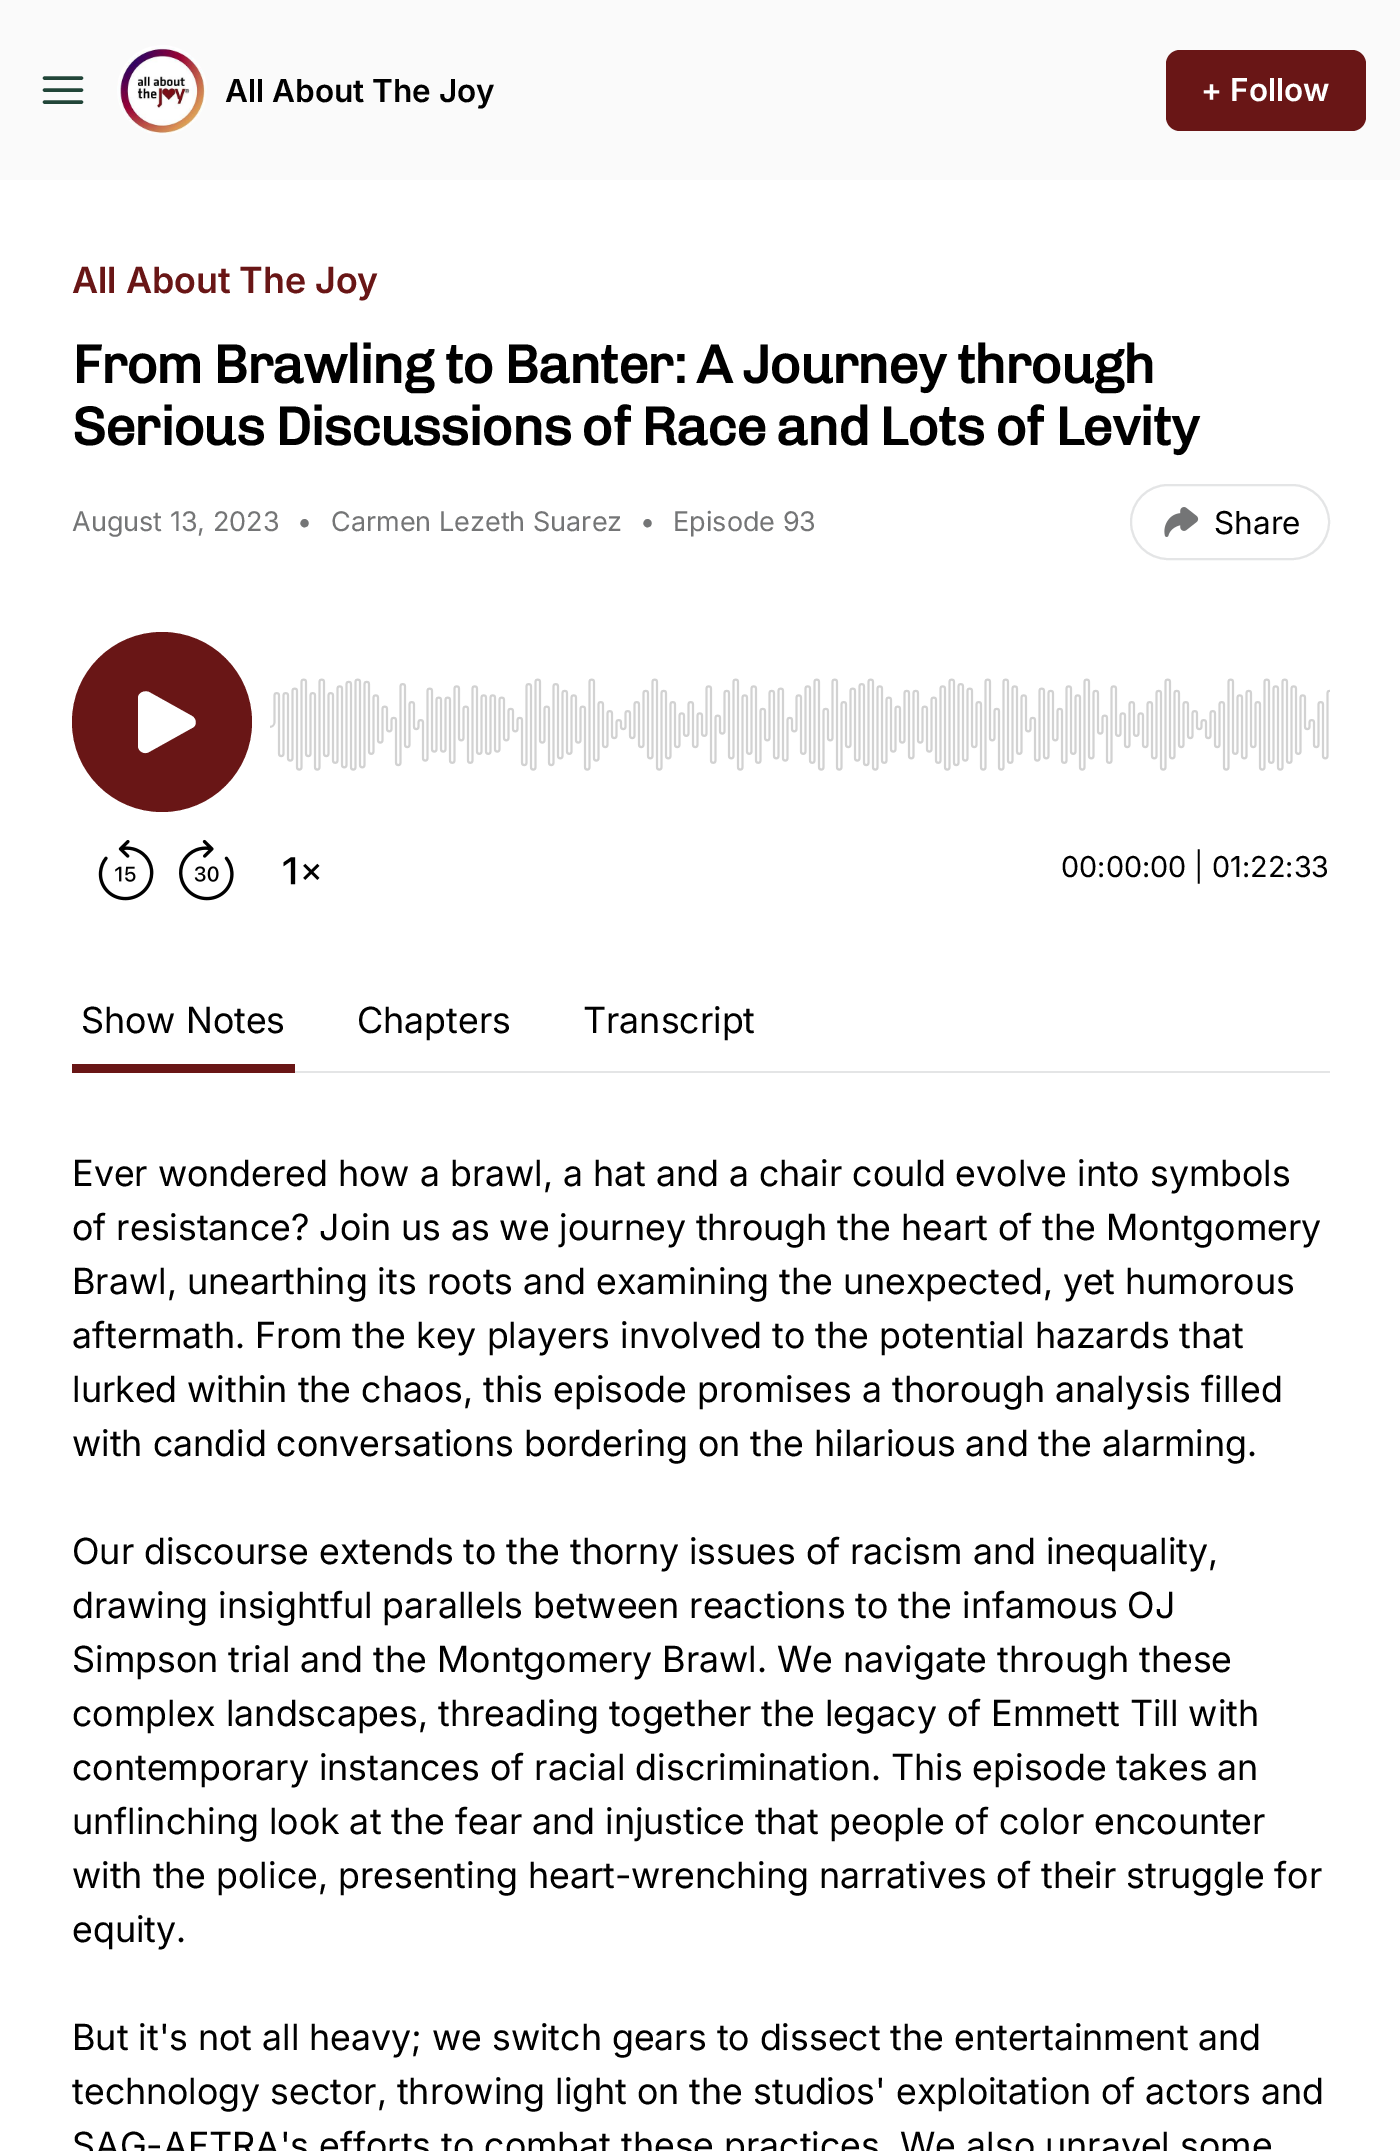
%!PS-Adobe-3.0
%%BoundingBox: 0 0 1400 2151
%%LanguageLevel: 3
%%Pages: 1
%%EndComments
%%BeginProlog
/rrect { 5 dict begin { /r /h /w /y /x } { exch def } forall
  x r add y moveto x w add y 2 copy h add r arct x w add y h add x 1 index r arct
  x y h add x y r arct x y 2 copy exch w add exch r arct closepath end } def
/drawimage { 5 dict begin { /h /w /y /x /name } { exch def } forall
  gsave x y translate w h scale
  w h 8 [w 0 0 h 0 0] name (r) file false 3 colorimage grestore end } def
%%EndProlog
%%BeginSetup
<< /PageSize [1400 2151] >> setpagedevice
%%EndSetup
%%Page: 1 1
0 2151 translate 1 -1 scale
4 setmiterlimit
1 setgray
0 0 1400 2151 rectfill
0.98 setgray
0 0 1400 180 rectfill
0.129 0.271 0.22 setrgbcolor
3.4 setlinewidth
1 setlinecap
1 setlinejoin
newpath 44.5 78 moveto 81.5 78 lineto 44.5 90 moveto 81.5 90 lineto 44.5 102 moveto 81.5 102 lineto stroke
(images/1.raw) 117 45 90 90 drawimage
0.412 0.086 0.086 setrgbcolor
1166 50 200 81 14 rrect fill
0.894 0.898 0.902 setrgbcolor
2 setlinewidth
0 setlinecap
0 setlinejoin
1131 485 198 74 37 rrect stroke
(images/2.raw) 1164 507 35 30 drawimage
(images/3.raw) 98 840 56 61 drawimage
(images/4.raw) 179 839 55 62 drawimage
(images/5.raw) 283 857 37 28 drawimage
0.412 0.086 0.086 setrgbcolor
newpath 162 722 90 0 360 arc closepath fill
1 setgray
newpath 138 698 moveto 138 693 144 690 149 692 curveto 192 716 lineto 197 719 197 726 192 728 curveto 149 752 lineto 144 755 138 751 138 746 curveto closepath eofill
(images/6.raw) 270 678 1060 93 drawimage
0.894 0.898 0.902 setrgbcolor
295 1071 1035 2 rectfill
0.412 0.086 0.086 setrgbcolor
72 1064 223 9 rectfill
/Inter-SemiBold [31.5 0 0 -31.5 0 0] selectfont
0 setgray
225 102 moveto (All About The Joy) show
1 setgray
1201 101 moveto (+ Follow) show
/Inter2-SemiBold [36 0 0 -36 0 0] selectfont
0.412 0.086 0.086 setrgbcolor
72 293 moveto (All About The Joy) show
/Chivo-Bold [54 0 0 -54 0 0] selectfont
0 setgray
72 383 moveto -1.35 0 (From Brawling to Banter: A Journey through) ashow
72 445 moveto -1.35 0 (Serious Discussions of Race and Lots of Levity) ashow
/Inter-Regular [27 0 0 -27 0 0] selectfont
0.455 0.459 0.463 setrgbcolor
72 531 moveto (August 13, 2023) show
297 531 moveto (•) show
331 531 moveto (Carmen Lezeth Suarez) show
640 531 moveto (•) show
673 531 moveto (Episode 93) show
/Inter-Regular [31.5 0 0 -31.5 0 0] selectfont
0 setgray
1214 534 moveto (Share) show
/Inter-Regular [28.75 0 0 -28.75 0 0] selectfont
1061 877 moveto (00:00:00 | 01:22:33) show
/Inter2-Regular [36 0 0 -36 0 0] selectfont
81 1033 moveto (Show Notes) show
357 1033 moveto (Chapters) show
583 1033 moveto (Transcript) show
72 1186 moveto (Ever wondered how a brawl, a hat and a chair could evolve into symbols) show
72 1240 moveto (of resistance? Join us as we journey through the heart of the Montgomery) show
72 1294 moveto (Brawl, unearthing its roots and examining the unexpected, yet humorous) show
72 1348 moveto (aftermath. From the key players involved to the potential hazards that) show
72 1402 moveto (lurked within the chaos, this episode promises a thorough analysis filled) show
72 1456 moveto (with candid conversations bordering on the hilarious and the alarming.) show
72 1564 moveto (Our discourse extends to the thorny issues of racism and inequality,) show
72 1618 moveto (drawing insightful parallels between reactions to the infamous OJ) show
72 1672 moveto (Simpson trial and the Montgomery Brawl. We navigate through these) show
72 1726 moveto (complex landscapes, threading together the legacy of Emmett Till with) show
72 1780 moveto (contemporary instances of racial discrimination. This episode takes an) show
72 1834 moveto (unflinching look at the fear and injustice that people of color encounter) show
72 1888 moveto (with the police, presenting heart-wrenching narratives of their struggle for) show
72 1942 moveto (equity.) show
72 2050 moveto (But it's not all heavy; we switch gears to dissect the entertainment and) show
72 2104 moveto (technology sector, throwing light on the studios' exploitation of actors and) show
72 2158 moveto (SAG-AFTRA's efforts to combat these practices. We also unravel some) show
showpage
%%EOF
